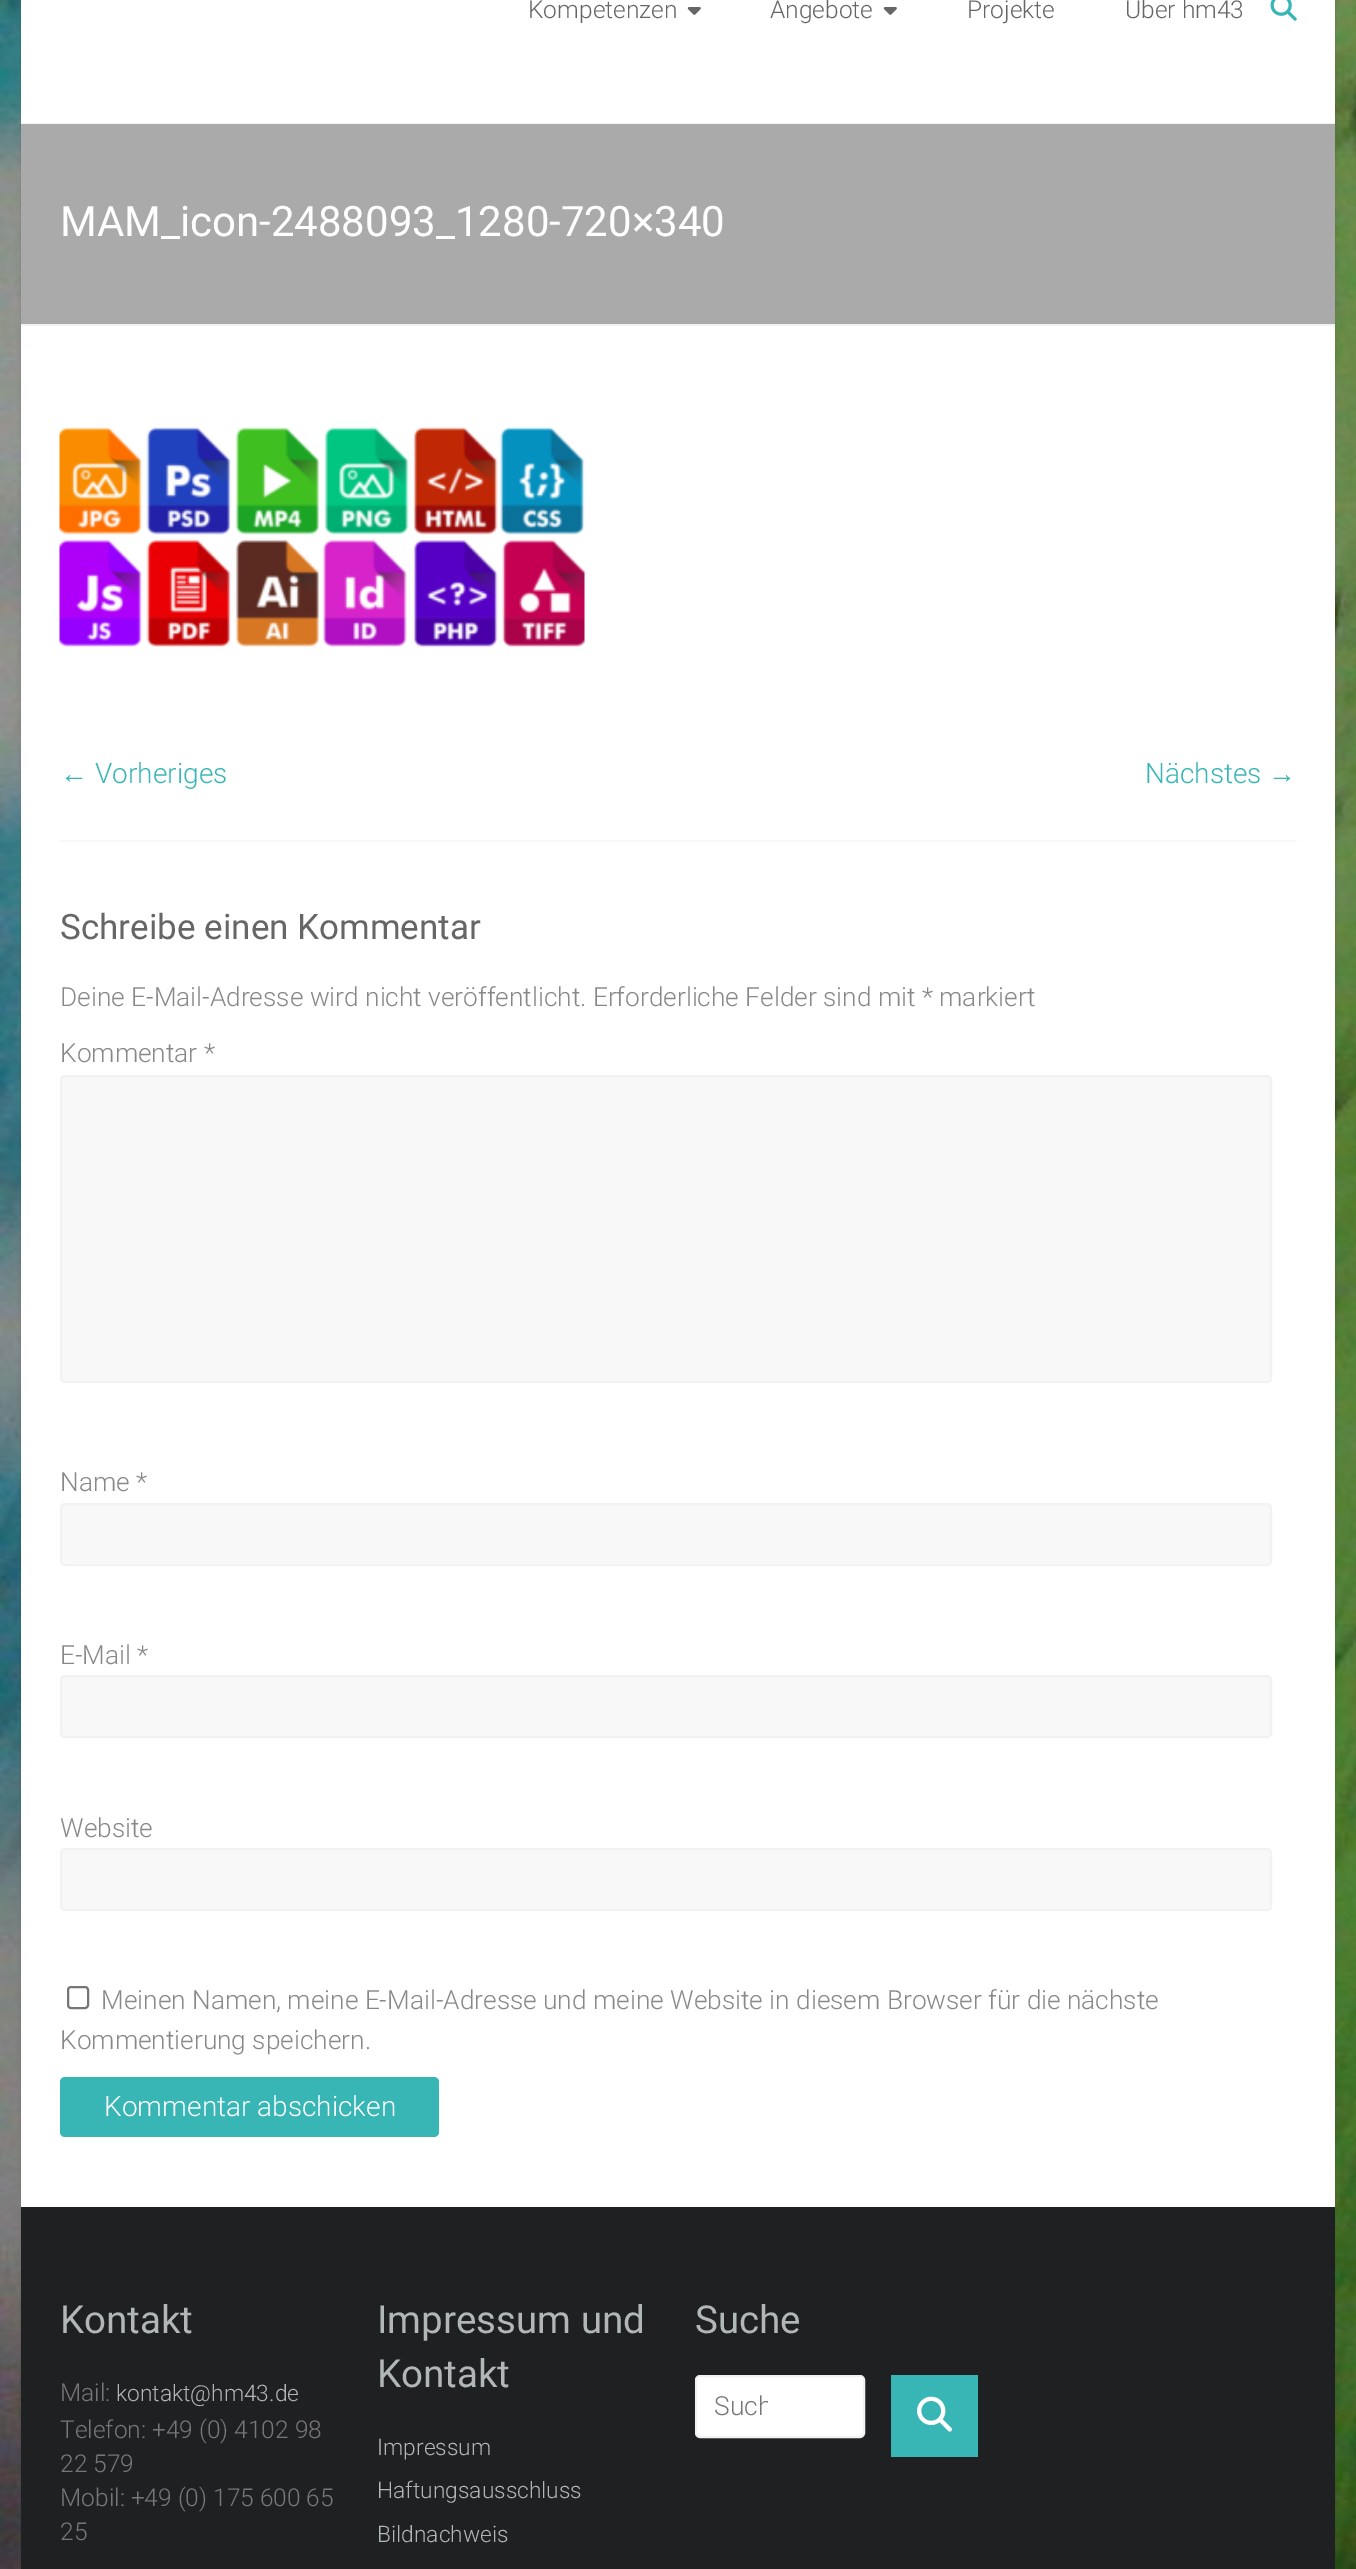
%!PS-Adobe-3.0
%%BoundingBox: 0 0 1356 2569
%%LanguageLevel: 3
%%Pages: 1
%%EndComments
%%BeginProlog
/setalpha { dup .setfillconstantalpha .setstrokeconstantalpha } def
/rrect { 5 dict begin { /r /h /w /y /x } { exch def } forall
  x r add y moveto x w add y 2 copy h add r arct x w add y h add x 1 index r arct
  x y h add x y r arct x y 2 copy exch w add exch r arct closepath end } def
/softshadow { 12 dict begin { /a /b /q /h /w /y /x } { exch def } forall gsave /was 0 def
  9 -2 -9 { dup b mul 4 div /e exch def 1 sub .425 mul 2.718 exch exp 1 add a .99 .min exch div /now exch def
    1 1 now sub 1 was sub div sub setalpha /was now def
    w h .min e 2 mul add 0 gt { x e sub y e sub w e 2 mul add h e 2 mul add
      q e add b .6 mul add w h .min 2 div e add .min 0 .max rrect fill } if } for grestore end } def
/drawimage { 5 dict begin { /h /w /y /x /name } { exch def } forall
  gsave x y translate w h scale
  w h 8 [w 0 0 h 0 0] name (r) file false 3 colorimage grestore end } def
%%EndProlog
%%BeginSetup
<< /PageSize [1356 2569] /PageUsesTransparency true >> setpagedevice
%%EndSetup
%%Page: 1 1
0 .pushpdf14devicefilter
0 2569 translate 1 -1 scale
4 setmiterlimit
1 setgray
0 0 1356 2569 rectfill
(images/1.raw) 0 0 1356 2569 drawimage
0 setgray
21 -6 1314 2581 0 2 0.1 softshadow
1 setgray
21 0 1314 2207 rectfill
0.949 setgray
21 123 1314 1 rectfill
(images/2.raw) 687 7 14 8 drawimage
(images/2.raw) 883 7 14 8 drawimage
(images/3.raw) 1270 0 27 21 drawimage
0.667 setgray
21 124 1314 200 rectfill
0.949 setgray
21 324 1314 2 rectfill
(images/4.raw) 59 427 526 221 drawimage
0.973 setgray
60 840 1237 2 rectfill
61 1076 1210 306 4 rrect gsave fill grestore
0.949 setgray
2 setlinewidth
stroke
0.973 setgray
61 1504 1210 61 4 rrect gsave fill grestore
0.949 setgray
stroke
0.973 setgray
61 1676 1210 61 4 rrect gsave fill grestore
0.949 setgray
stroke
0.973 setgray
61 1849 1210 61 4 rrect gsave fill grestore
0.949 setgray
stroke
0.463 setgray
68 1987 20 21 3 rrect stroke
0.22 0.71 0.71 setrgbcolor
60 2077 379 60 5 rrect fill
0.122 0.125 0.129 setrgbcolor
21 2207 1314 362 rectfill
1 setgray
696 2376 168 61 4 rrect gsave fill grestore
0.949 setgray
stroke
0.22 0.71 0.71 setrgbcolor
891 2375 87 82 rectfill
(images/5.raw) 917 2396 35 36 drawimage
/Roboto-Light [24.5 0 0 -24.5 0 0] selectfont
0.4 setgray
528 18 moveto (Kompetenzen) show
770 18 moveto (Angebote) show
967 18 moveto (Projekte) show
1125 18 moveto (Über hm43) show
/Roboto-Regular [42 0 0 -42 0 0] selectfont
1 setgray
60 236 moveto (MAM_icon-2488093_1280-720×340) show
/LiberationSans-Regular [28 0 0 -28 0 0] selectfont
0.22 0.71 0.71 setrgbcolor
60 783 moveto (←) show
/Roboto-Light [28 0 0 -28 0 0] selectfont
95 783 moveto (Vorheriges) show
1145 783 moveto (Nächstes) show
/LiberationSans-Regular [28 0 0 -28 0 0] selectfont
1268 783 moveto (→) show
/Roboto-Regular [35 0 0 -35 0 0] selectfont
0.4 setgray
60 939 moveto (Schreibe einen Kommentar) show
/Roboto-Light [26.25 0 0 -26.25 0 0] selectfont
0.533 setgray
60 1006 moveto (Deine E-Mail-Adresse wird nicht veröffentlicht. Erforderliche Felder sind mit * markiert) show
60 1062 moveto (Kommentar *) show
60 1491 moveto (Name *) show
60 1664 moveto (E-Mail *) show
60 1837 moveto (Website) show
101 2009 moveto (Meinen Namen, meine E-Mail-Adresse und meine Website in diesem Browser für die nächste) show
60 2049 moveto (Kommentierung speichern.) show
/Roboto-Light [28 0 0 -28 0 0] selectfont
1 setgray
104 2116 moveto (Kommentar abschicken) show
/Roboto-Regular [38.5 0 0 -38.5 0 0] selectfont
0.694 0.714 0.714 setrgbcolor
60 2333 moveto (Kontakt) show
/Roboto-Light [24.5 0 0 -24.5 0 0] selectfont
0.467 setgray
60 2401 moveto (Mail:) show
/Roboto-Light [22.75 0 0 -22.75 0 0] selectfont
0.694 0.714 0.714 setrgbcolor
116 2401 moveto (kontakt@hm43.de) show
/Roboto-Light [24.5 0 0 -24.5 0 0] selectfont
0.467 setgray
60 2438 moveto (Telefon: +49 \(0\) 4102 98) show
60 2472 moveto (22 579) show
60 2506 moveto (Mobil: +49 \(0\) 175 600 65) show
60 2540 moveto (25) show
/Roboto-Regular [38.5 0 0 -38.5 0 0] selectfont
0.694 0.714 0.714 setrgbcolor
377 2333 moveto (Impressum und) show
377 2387 moveto (Kontakt) show
/Roboto-Light [22.75 0 0 -22.75 0 0] selectfont
377 2455 moveto (Impressum) show
377 2498 moveto (Haftungsausschluss) show
377 2542 moveto (Bildnachweis) show
/Roboto-Regular [38.5 0 0 -38.5 0 0] selectfont
695 2333 moveto (Suche) show
gsave
714 2391 54 31 rectclip
/Roboto-Light [26.25 0 0 -26.25 0 0] selectfont
0.467 setgray
714 2415 moveto (Such) show
grestore
.poppdf14devicefilter showpage
%%EOF
